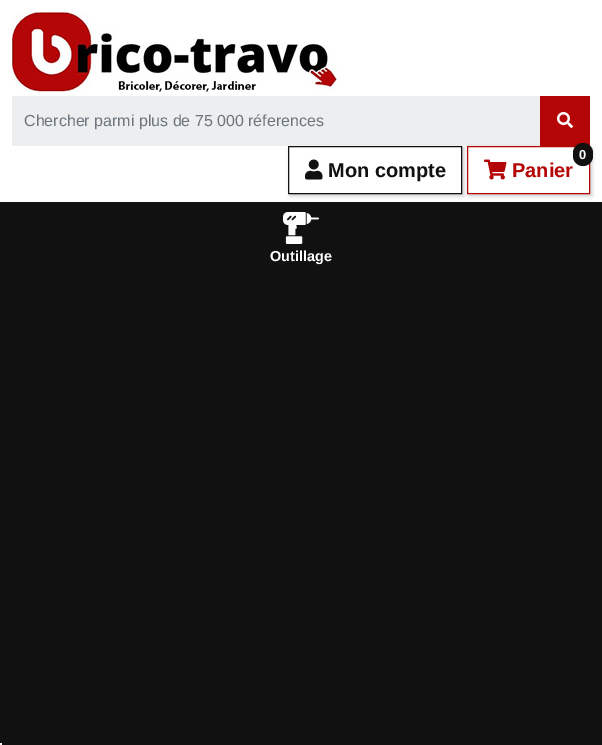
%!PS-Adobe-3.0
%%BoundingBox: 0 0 602 745
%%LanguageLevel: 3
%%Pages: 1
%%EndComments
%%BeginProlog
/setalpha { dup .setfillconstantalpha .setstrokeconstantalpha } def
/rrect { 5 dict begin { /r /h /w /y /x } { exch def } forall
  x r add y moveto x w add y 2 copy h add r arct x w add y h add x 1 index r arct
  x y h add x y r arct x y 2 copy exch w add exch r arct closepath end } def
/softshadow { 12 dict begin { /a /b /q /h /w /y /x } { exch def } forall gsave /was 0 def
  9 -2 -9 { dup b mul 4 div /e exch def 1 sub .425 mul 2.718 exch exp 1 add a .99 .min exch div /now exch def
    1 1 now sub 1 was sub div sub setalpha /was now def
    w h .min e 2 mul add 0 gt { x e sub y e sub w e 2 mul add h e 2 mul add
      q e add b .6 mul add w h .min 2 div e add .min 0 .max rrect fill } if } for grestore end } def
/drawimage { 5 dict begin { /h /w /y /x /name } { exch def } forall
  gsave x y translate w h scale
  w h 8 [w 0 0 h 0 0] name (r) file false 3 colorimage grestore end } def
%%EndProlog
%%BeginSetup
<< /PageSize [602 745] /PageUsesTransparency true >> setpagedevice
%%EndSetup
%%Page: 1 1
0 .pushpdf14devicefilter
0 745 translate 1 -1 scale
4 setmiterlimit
1 setgray
0 0 602 745 rectfill
(images/1.raw) 12 12 325 80 drawimage
gsave
newpath 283 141 moveto 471 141 lineto 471 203 lineto 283 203 lineto closepath 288 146 moveto 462 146 lineto 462 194 lineto 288 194 lineto closepath eoclip newpath
0 setgray
290 148 174 48 0 2 0.2 softshadow
grestore
0.925 0.933 0.937 setrgbcolor
12 96 528 50 rectfill
0.706 0.024 0.024 setrgbcolor
540 96 50 50 rectfill
(images/2.raw) 557 112 16 16 drawimage
0.067 setgray
288.5 146.5 173 47 rectstroke
(images/3.raw) 305 159 18 21 drawimage
gsave
newpath 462 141 moveto 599 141 lineto 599 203 lineto 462 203 lineto closepath 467 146 moveto 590 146 lineto 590 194 lineto 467 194 lineto closepath eoclip newpath
0 setgray
469 148 123 48 0 2 0.2 softshadow
grestore
0.706 0.024 0.024 setrgbcolor
467.5 146.5 122 47 rectstroke
0.067 setgray
573 143 20 23 10 rrect fill
(images/4.raw) 484 159 23 21 drawimage
0 202 602 543 rectfill
(images/5.raw) 283 212 36 32 drawimage
0.961 setgray
0 743 2 2 rectfill
/LiberationSans-Regular [16 0 0 -16 0 0] selectfont
0.424 0.459 0.49 setrgbcolor
24 126 moveto (Chercher parmi plus de 75 000 réferences) show
/LiberationSans-Bold [20 0 0 -20 0 0] selectfont
0.067 setgray
328 177 moveto (Mon compte) show
/LiberationSans-Bold [13 0 0 -13 0 0] selectfont
1 setgray
579 159 moveto (0) show
/LiberationSans-Bold [20 0 0 -20 0 0] selectfont
0.706 0.024 0.024 setrgbcolor
512 177 moveto (Panier) show
/LiberationSans-Bold [14.5 0 0 -14.5 0 0] selectfont
1 setgray
270 261 moveto (Outillage) show
.poppdf14devicefilter showpage
%%EOF
